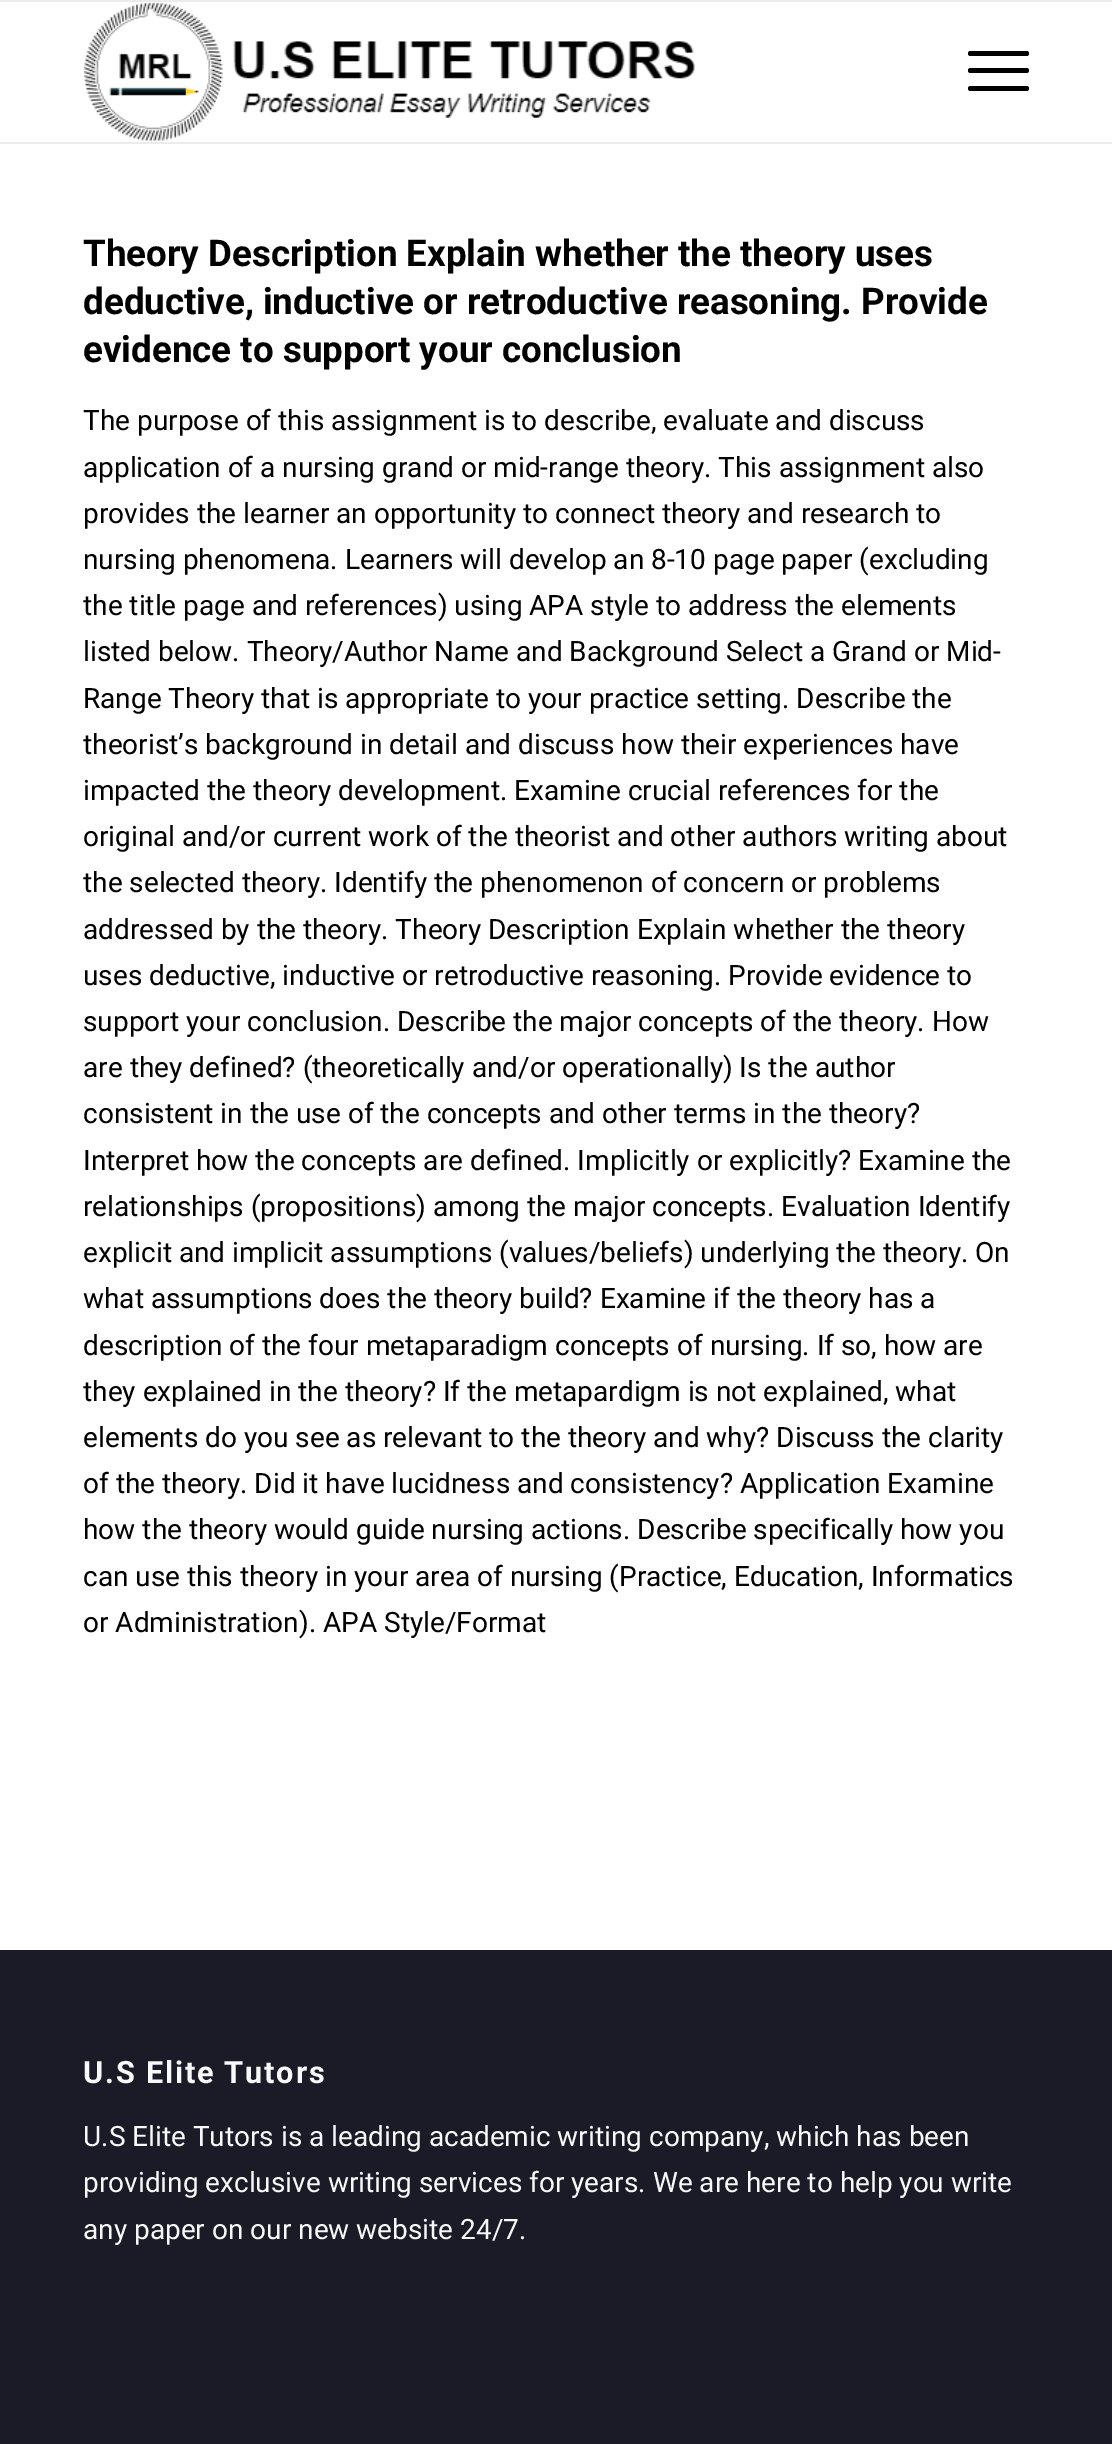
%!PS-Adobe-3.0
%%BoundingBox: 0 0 1112 2444
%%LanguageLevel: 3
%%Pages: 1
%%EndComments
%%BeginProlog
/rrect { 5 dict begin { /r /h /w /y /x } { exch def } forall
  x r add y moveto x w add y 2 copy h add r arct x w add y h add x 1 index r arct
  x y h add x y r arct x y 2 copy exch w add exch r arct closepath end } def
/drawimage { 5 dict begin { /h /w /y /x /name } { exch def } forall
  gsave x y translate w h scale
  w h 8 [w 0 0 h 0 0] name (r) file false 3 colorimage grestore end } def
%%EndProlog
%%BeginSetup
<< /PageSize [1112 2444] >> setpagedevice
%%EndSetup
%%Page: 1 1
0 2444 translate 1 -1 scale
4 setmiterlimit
1 setgray
0 0 1112 2444 rectfill
0.922 setgray
0 0 1112 2 rectfill
0 142 1112 2 rectfill
(images/1.raw) 84 2 611 140 drawimage
0 setgray
968 68 61 5 2.5 rrect fill
968 51 61 5 2.5 rrect fill
968 86 61 5 2.5 rrect fill
0.102 0.106 0.153 setrgbcolor
0 1950 1112 494 rectfill
/Roboto-Bold [36.75 0 0 -36.75 0 0] selectfont
0 setgray
83 266 moveto (Theory Description Explain whether the theory uses) show
83 314 moveto (deductive, inductive or retroductive reasoning. Provide) show
83 362 moveto (evidence to support your conclusion) show
/Roboto-Regular [28 0 0 -28 0 0] selectfont
83 430 moveto (The purpose of this assignment is to describe, evaluate and discuss) show
83 477 moveto (application of a nursing grand or mid-range theory. This assignment also) show
83 523 moveto (provides the learner an opportunity to connect theory and research to) show
83 569 moveto (nursing phenomena. Learners will develop an 8-10 page paper \(excluding) show
83 615 moveto (the title page and references\) using APA style to address the elements) show
83 661 moveto (listed below. Theory/Author Name and Background Select a Grand or Mid-) show
83 708 moveto (Range Theory that is appropriate to your practice setting. Describe the) show
83 754 moveto (theorist’s background in detail and discuss how their experiences have) show
83 800 moveto (impacted the theory development. Examine crucial references for the) show
83 846 moveto (original and/or current work of the theorist and other authors writing about) show
83 892 moveto (the selected theory. Identify the phenomenon of concern or problems) show
83 939 moveto (addressed by the theory. Theory Description Explain whether the theory) show
83 985 moveto (uses deductive, inductive or retroductive reasoning. Provide evidence to) show
83 1031 moveto (support your conclusion. Describe the major concepts of the theory. How) show
83 1077 moveto (are they defined? \(theoretically and/or operationally\) Is the author) show
83 1123 moveto (consistent in the use of the concepts and other terms in the theory?) show
83 1170 moveto (Interpret how the concepts are defined. Implicitly or explicitly? Examine the) show
83 1216 moveto (relationships \(propositions\) among the major concepts. Evaluation Identify) show
83 1262 moveto (explicit and implicit assumptions \(values/beliefs\) underlying the theory. On) show
83 1308 moveto (what assumptions does the theory build? Examine if the theory has a) show
83 1355 moveto (description of the four metaparadigm concepts of nursing. If so, how are) show
83 1401 moveto (they explained in the theory? If the metapardigm is not explained, what) show
83 1447 moveto (elements do you see as relevant to the theory and why? Discuss the clarity) show
83 1493 moveto (of the theory. Did it have lucidness and consistency? Application Examine) show
83 1539 moveto (how the theory would guide nursing actions. Describe specifically how you) show
83 1586 moveto (can use this theory in your area of nursing \(Practice, Education, Informatics) show
83 1632 moveto (or Administration\). APA Style/Format) show
/Roboto-Bold [30.75 0 0 -30.75 0 0] selectfont
0.973 setgray
83 2083 moveto 1.75 0 (U.S Elite Tutors) ashow
/Roboto-Regular [28 0 0 -28 0 0] selectfont
83 2146 moveto (U.S Elite Tutors is a leading academic writing company, which has been) show
83 2192 moveto (providing exclusive writing services for years. We are here to help you write) show
83 2239 moveto (any paper on our new website 24/7.) show
showpage
%%EOF
